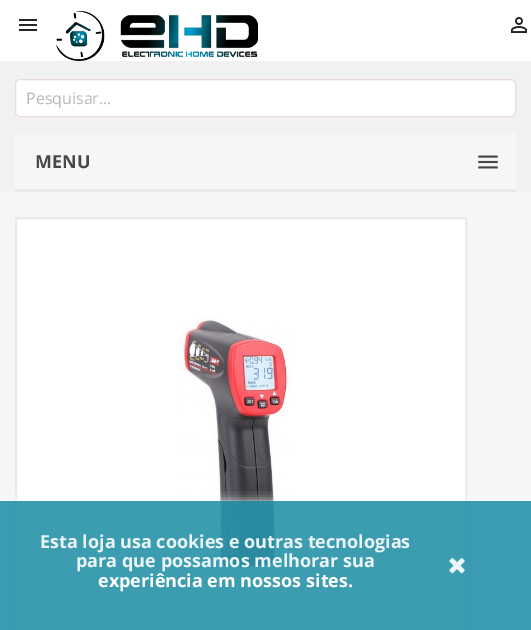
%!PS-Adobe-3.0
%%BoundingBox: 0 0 531 630
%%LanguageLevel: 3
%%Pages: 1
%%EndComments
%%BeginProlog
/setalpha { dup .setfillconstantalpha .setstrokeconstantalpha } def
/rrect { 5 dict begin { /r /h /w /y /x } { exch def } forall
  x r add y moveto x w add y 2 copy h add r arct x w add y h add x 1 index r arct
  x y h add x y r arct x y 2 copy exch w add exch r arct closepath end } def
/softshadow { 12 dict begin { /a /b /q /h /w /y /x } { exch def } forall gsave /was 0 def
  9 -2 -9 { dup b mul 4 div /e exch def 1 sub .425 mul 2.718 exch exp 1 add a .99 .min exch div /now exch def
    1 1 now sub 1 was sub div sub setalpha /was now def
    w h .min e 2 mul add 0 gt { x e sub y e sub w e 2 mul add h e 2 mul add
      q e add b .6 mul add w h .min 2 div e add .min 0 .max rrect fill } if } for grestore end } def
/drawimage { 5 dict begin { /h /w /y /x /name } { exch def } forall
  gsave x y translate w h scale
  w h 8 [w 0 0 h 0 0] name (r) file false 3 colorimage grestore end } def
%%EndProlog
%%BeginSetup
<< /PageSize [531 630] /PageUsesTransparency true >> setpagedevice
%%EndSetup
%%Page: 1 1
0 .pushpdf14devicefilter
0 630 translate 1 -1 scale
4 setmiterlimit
0.945 setgray
0 0 531 630 rectfill
1 setgray
0 0 531 61 rectfill
(images/1.raw) 19 19 18 12 drawimage
(images/2.raw) 56 11 202 50 drawimage
(images/3.raw) 511 17 16 16 drawimage
15.5 79.5 500 37 4.5 rrect gsave fill grestore
0.918 0.859 0.859 setrgbcolor
stroke
0.965 setgray
15 133 501 56 rectfill
0.914 setgray
15 189 501 3 rectfill
(images/4.raw) 478 155 20 14 drawimage
0.965 setgray
0 192 531 438 rectfill
1 setgray
newpath 16 218 moveto 466 218 lineto 466 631 lineto 16 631 lineto closepath gsave fill grestore
0.914 setgray
2 setlinewidth
stroke
(images/5.raw) 180 317 111 252 drawimage
gsave
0 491 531 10 rectclip
1 setgray
0 501 531 129 0 5 0.9 softshadow
grestore
0.9 setalpha
0.153 0.573 0.663 setrgbcolor
0 501 531 129 rectfill
1 setalpha
(images/6.raw) 449 558 16 16 drawimage
/OpenSans-Regular [16 0 0 -16 0 0] selectfont
0.718 setgray
26 104 moveto (Pesquisar...) show
/OpenSans-Bold [18 0 0 -18 0 0] selectfont
0.282 setgray
35 168 moveto (MENU) show
0.922 0.961 0.969 setrgbcolor
40 548 moveto (Esta loja usa cookies e outras tecnologias) show
76 567 moveto (para que possamos melhorar sua) show
1 setgray
98 587 moveto (experiência em nossos sites.) show
.poppdf14devicefilter showpage
%%EOF
